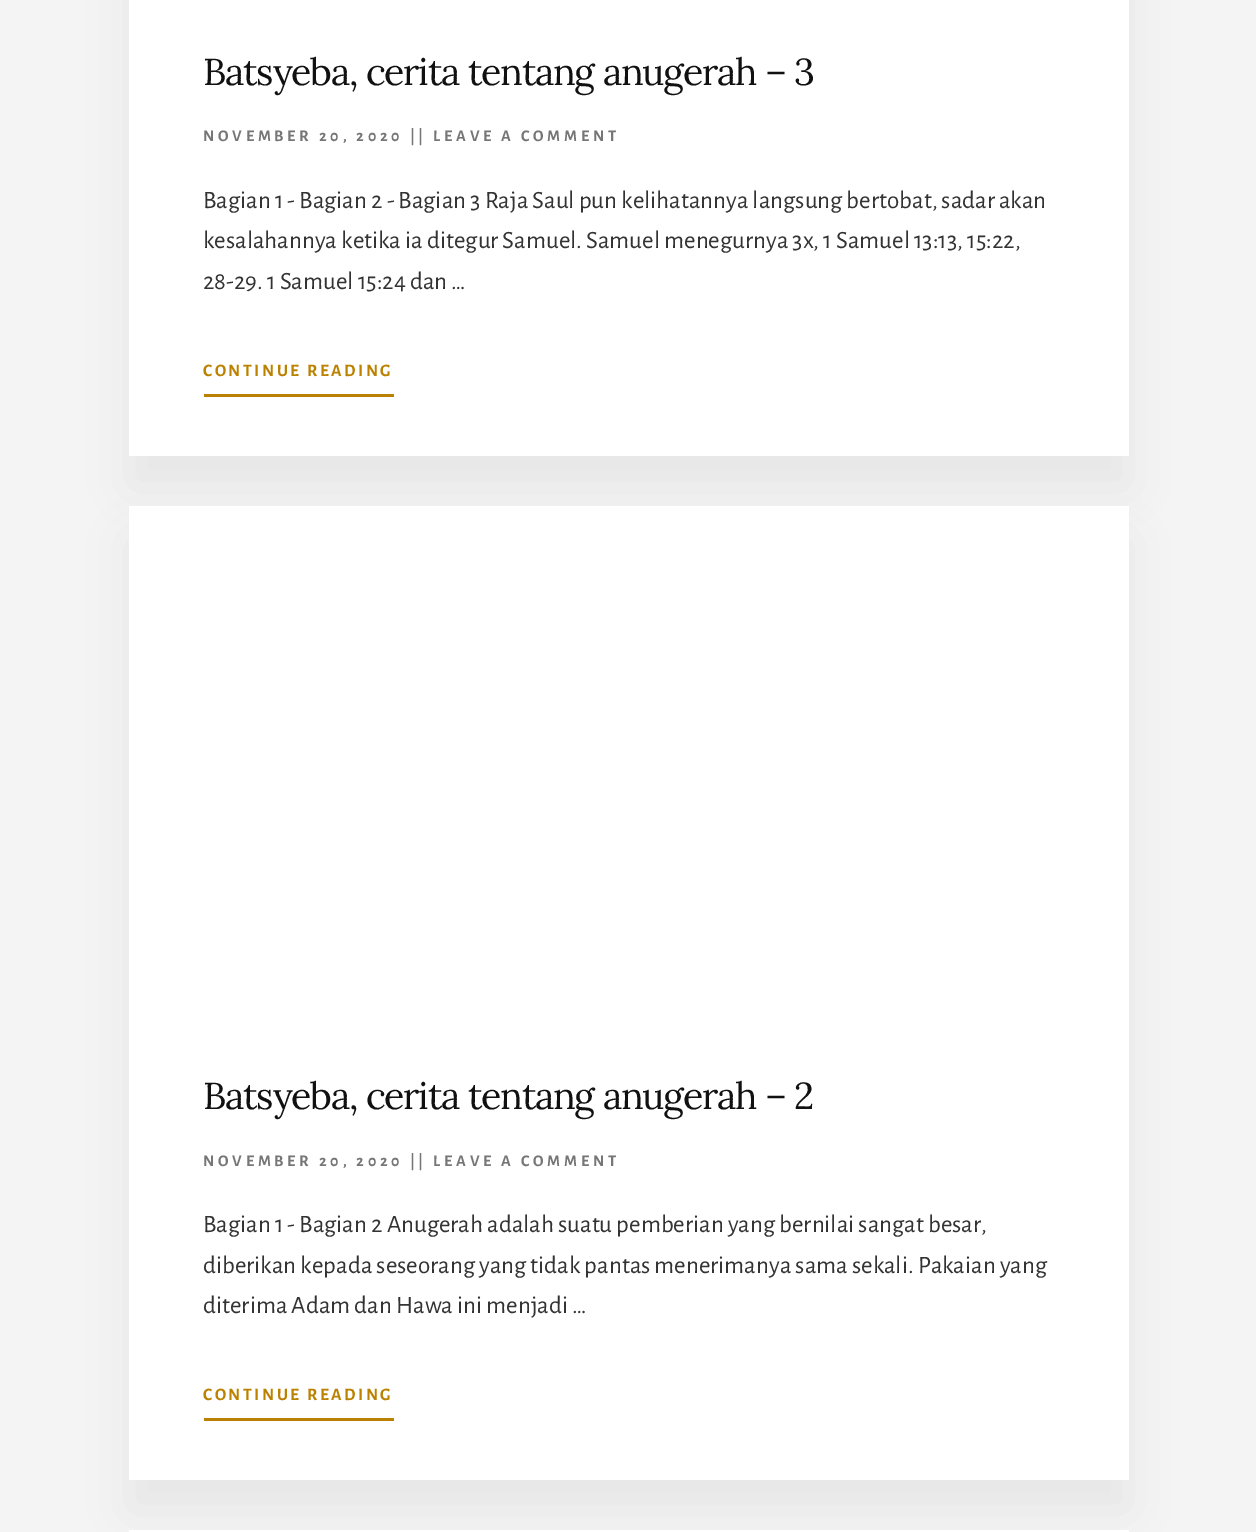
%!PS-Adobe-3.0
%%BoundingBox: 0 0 1256 1532
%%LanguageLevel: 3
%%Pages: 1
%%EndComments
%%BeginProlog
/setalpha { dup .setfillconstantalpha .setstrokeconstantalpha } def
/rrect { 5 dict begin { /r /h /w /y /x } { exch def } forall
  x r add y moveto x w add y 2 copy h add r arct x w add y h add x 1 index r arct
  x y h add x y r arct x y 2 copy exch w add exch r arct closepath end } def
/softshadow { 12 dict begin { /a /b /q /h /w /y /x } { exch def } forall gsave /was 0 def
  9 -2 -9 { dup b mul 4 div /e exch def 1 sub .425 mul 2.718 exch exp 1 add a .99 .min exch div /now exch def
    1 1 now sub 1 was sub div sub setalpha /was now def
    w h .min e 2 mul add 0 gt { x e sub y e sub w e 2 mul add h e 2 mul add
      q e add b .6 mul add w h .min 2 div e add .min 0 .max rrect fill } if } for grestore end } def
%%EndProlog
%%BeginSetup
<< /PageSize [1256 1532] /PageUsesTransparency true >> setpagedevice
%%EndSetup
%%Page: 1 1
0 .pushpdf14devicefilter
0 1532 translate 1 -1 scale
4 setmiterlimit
0.957 setgray
0 0 1256 1532 rectfill
0 setgray
129 -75 1000 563 0 25 0.05 softshadow
1 setgray
129 0 1000 456 rectfill
0.733 0.506 0 setrgbcolor
204 394 190 3 rectfill
0 setgray
129 538 1000 973 0 25 0.05 softshadow
1 setgray
129 506 1000 974 rectfill
0.733 0.506 0 setrgbcolor
204 1418 190 3 rectfill
1 setgray
129 1530 1000 2 rectfill
/Lora-Regular [37.5 0 0 -37.5 0 0] selectfont
0.067 setgray
203 85 moveto -1.25 0 (Batsyeba, cerita tentang anugerah – 3) ashow
/AlegreyaSans-Bold [16.25 0 0 -16.25 0 0] selectfont
0.463 setgray
203 141 moveto 3.75 0 (NOVEMBER 20, 2020 || LEAVE A COMMENT) ashow
/AlegreyaSans-Regular [25 0 0 -25 0 0] selectfont
0.2 setgray
203 208 moveto (Bagian 1 - Bagian 2 - Bagian 3 Raja Saul pun kelihatannya langsung bertobat, sadar akan) show
203 248 moveto (kesalahannya ketika ia ditegur Samuel. Samuel menegurnya 3x, 1 Samuel 13:13, 15:22,) show
203 289 moveto (28-29. 1 Samuel 15:24 dan …) show
/AlegreyaSans-Bold [17.5 0 0 -17.5 0 0] selectfont
0.733 0.506 0 setrgbcolor
203 376 moveto 2.5 0 (CONTINUE READING) ashow
/Lora-Regular [37.5 0 0 -37.5 0 0] selectfont
0.067 setgray
203 1109 moveto -1.25 0 (Batsyeba, cerita tentang anugerah – 2) ashow
/AlegreyaSans-Bold [16.25 0 0 -16.25 0 0] selectfont
0.463 setgray
203 1166 moveto 3.75 0 (NOVEMBER 20, 2020 || LEAVE A COMMENT) ashow
/AlegreyaSans-Regular [25 0 0 -25 0 0] selectfont
0.2 setgray
203 1232 moveto (Bagian 1 - Bagian 2 Anugerah adalah suatu pemberian yang bernilai sangat besar,) show
203 1273 moveto (diberikan kepada seseorang yang tidak pantas menerimanya sama sekali. Pakaian yang) show
203 1313 moveto (diterima Adam dan Hawa ini menjadi …) show
/AlegreyaSans-Bold [17.5 0 0 -17.5 0 0] selectfont
0.733 0.506 0 setrgbcolor
203 1400 moveto 2.5 0 (CONTINUE READING) ashow
.poppdf14devicefilter showpage
%%EOF
